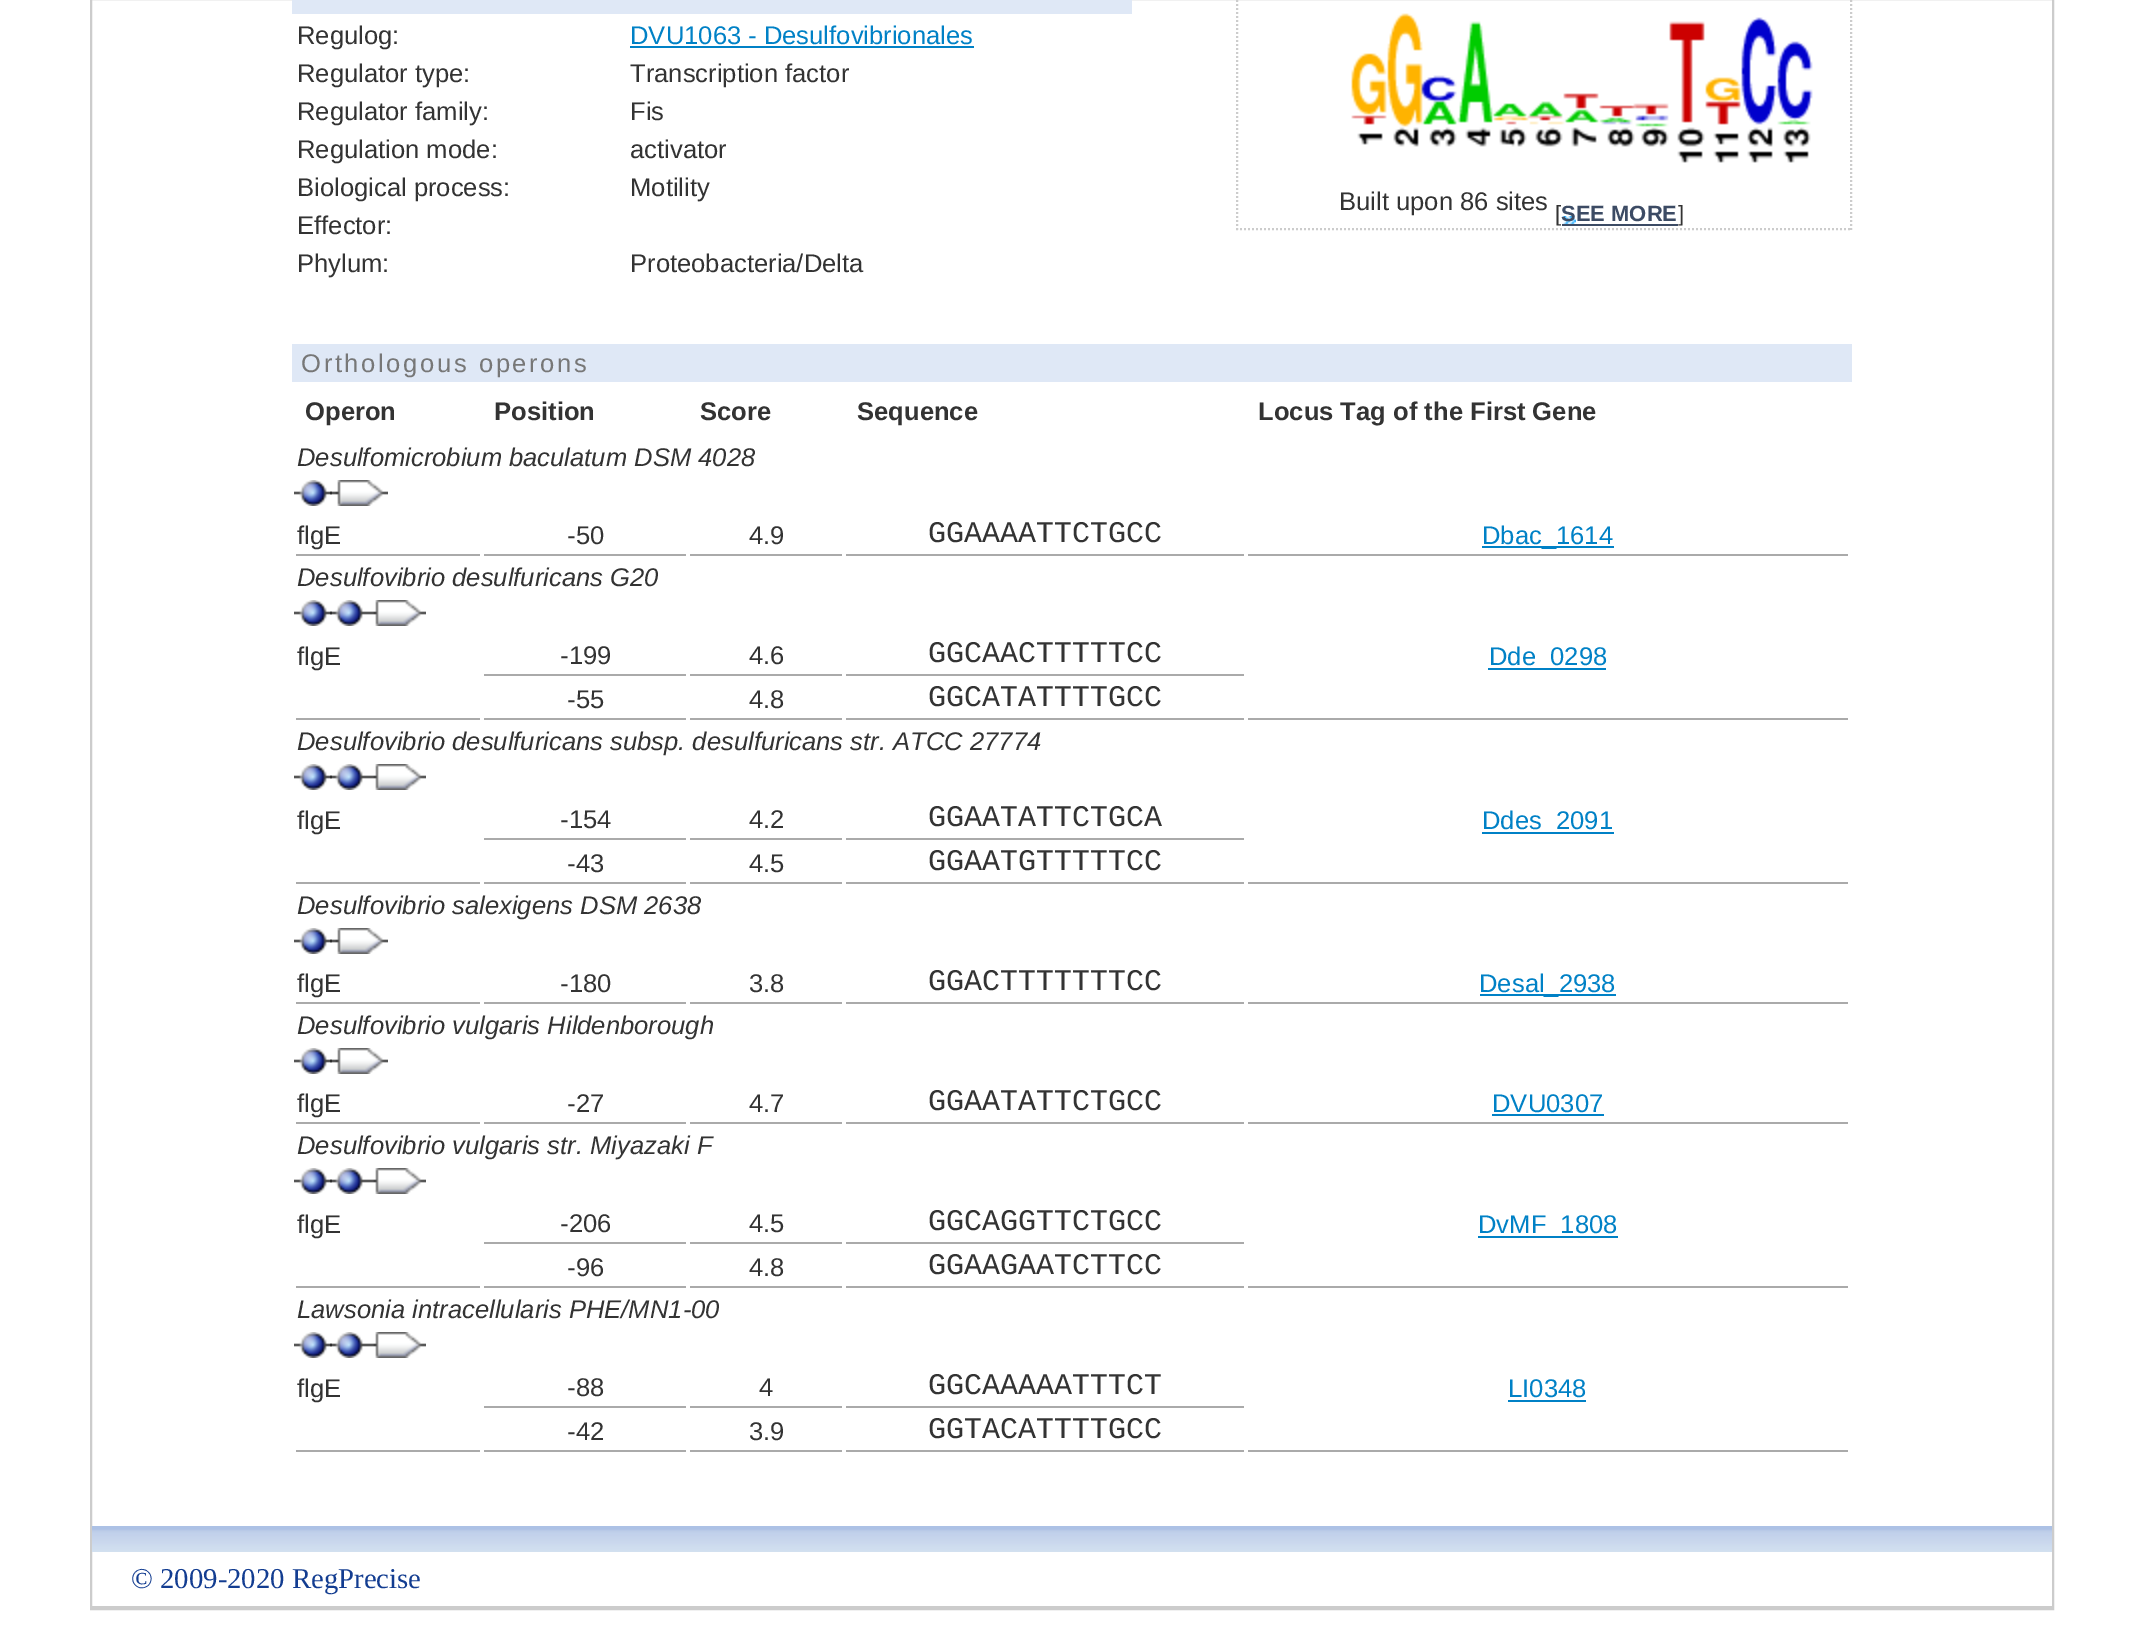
%!PS-Adobe-3.0
%%BoundingBox: 0 0 2142 1625
%%LanguageLevel: 3
%%Pages: 1
%%EndComments
%%BeginProlog
/drawimage { 5 dict begin { /h /w /y /x /name } { exch def } forall
  gsave x y translate w h scale
  w h 8 [w 0 0 h 0 0] name (r) file false 3 colorimage grestore end } def
%%EndProlog
%%BeginSetup
<< /PageSize [2142 1625] >> setpagedevice
%%EndSetup
%%Page: 1 1
0 1625 translate 1 -1 scale
4 setmiterlimit
1 setgray
0 0 2142 1625 rectfill
0.8 setgray
2 setlinewidth
91 -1 1962 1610 rectstroke
0.875 0.91 0.965 setrgbcolor
292 0 840 14 rectfill
0 0.506 0.776 setrgbcolor
630 46 344 2 rectfill
0.8 setgray
[2 2] 0 setdash
newpath 1851 -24 moveto 1851 230 lineto stroke
newpath 1236 229 moveto 1852 229 lineto stroke
newpath 1237 -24 moveto 1237 230 lineto stroke
(images/1.raw) 1351 13 462 150 drawimage
0.235 0.294 0.392 setrgbcolor
1562 224 116 2 rectfill
(images/2.raw) 1562 216 14 8 drawimage
0.875 0.91 0.965 setrgbcolor
292 344 1560 38 rectfill
(images/3.raw) 294 480 38 26 drawimage
(images/4.raw) 330 480 58 26 drawimage
0.667 setgray
296 554 184 2 rectfill
484 554 202 2 rectfill
690 554 152 2 rectfill
846 554 398 2 rectfill
1248 554 600 2 rectfill
0 0.506 0.776 setrgbcolor
1482 546 132 2 rectfill
(images/3.raw) 294 600 38 26 drawimage
(images/5.raw) 330 600 38 26 drawimage
(images/6.raw) 368 600 58 26 drawimage
0.667 setgray
484 674 202 2 rectfill
690 674 152 2 rectfill
846 674 398 2 rectfill
0 0.506 0.776 setrgbcolor
1488 668 118 2 rectfill
0.667 setgray
484 718 202 2 rectfill
690 718 152 2 rectfill
846 718 398 2 rectfill
296 718 184 2 rectfill
1248 718 600 2 rectfill
(images/3.raw) 294 764 38 26 drawimage
(images/5.raw) 330 764 38 26 drawimage
(images/6.raw) 368 764 58 26 drawimage
484 838 202 2 rectfill
690 838 152 2 rectfill
846 838 398 2 rectfill
0 0.506 0.776 setrgbcolor
1482 832 132 2 rectfill
0.667 setgray
484 882 202 2 rectfill
690 882 152 2 rectfill
846 882 398 2 rectfill
296 882 184 2 rectfill
1248 882 600 2 rectfill
(images/3.raw) 294 928 38 26 drawimage
(images/4.raw) 330 928 58 26 drawimage
296 1002 184 2 rectfill
484 1002 202 2 rectfill
690 1002 152 2 rectfill
846 1002 398 2 rectfill
1248 1002 600 2 rectfill
0 0.506 0.776 setrgbcolor
1480 994 136 2 rectfill
(images/3.raw) 294 1048 38 26 drawimage
(images/4.raw) 330 1048 58 26 drawimage
0.667 setgray
296 1122 184 2 rectfill
484 1122 202 2 rectfill
690 1122 152 2 rectfill
846 1122 398 2 rectfill
1248 1122 600 2 rectfill
0 0.506 0.776 setrgbcolor
1492 1114 112 2 rectfill
(images/3.raw) 294 1168 38 26 drawimage
(images/5.raw) 330 1168 38 26 drawimage
(images/6.raw) 368 1168 58 26 drawimage
0.667 setgray
484 1242 202 2 rectfill
690 1242 152 2 rectfill
846 1242 398 2 rectfill
0 0.506 0.776 setrgbcolor
1478 1236 140 2 rectfill
0.667 setgray
484 1286 202 2 rectfill
690 1286 152 2 rectfill
846 1286 398 2 rectfill
296 1286 184 2 rectfill
1248 1286 600 2 rectfill
(images/3.raw) 294 1332 38 26 drawimage
(images/5.raw) 330 1332 38 26 drawimage
(images/6.raw) 368 1332 58 26 drawimage
484 1406 202 2 rectfill
690 1406 152 2 rectfill
846 1406 398 2 rectfill
0 0.506 0.776 setrgbcolor
1508 1400 78 2 rectfill
0.667 setgray
484 1450 202 2 rectfill
690 1450 152 2 rectfill
846 1450 398 2 rectfill
296 1450 184 2 rectfill
1248 1450 600 2 rectfill
(images/7.raw) 92 1526 1960 26 drawimage
0.8 setgray
92 1606 1960 2 rectfill
/LiberationSans-Regular [25.6 0 0 -25.6 0 0] selectfont
0.2 setgray
297 44 moveto (Regulog:) show
0 0.506 0.776 setrgbcolor
630 44 moveto (DVU1063 - Desulfovibrionales) show
0.2 setgray
297 82 moveto (Regulator type:) show
630 82 moveto (Transcription factor) show
297 120 moveto (Regulator family:) show
630 120 moveto (Fis) show
297 158 moveto (Regulation mode:) show
630 158 moveto (activator) show
297 196 moveto (Biological process:) show
630 196 moveto (Motility) show
297 234 moveto (Effector:) show
297 272 moveto (Phylum:) show
630 272 moveto (Proteobacteria/Delta) show
1339 210 moveto (Built upon 86 sites) show
/LiberationSans-Regular [22 0 0 -22 0 0] selectfont
1555 221 moveto ([) show
/LiberationSans-Bold [22 0 0 -22 0 0] selectfont
0.235 0.294 0.392 setrgbcolor
1561 221 moveto (SEE MORE) show
/LiberationSans-Regular [22 0 0 -22 0 0] selectfont
0.2 setgray
1678 221 moveto (]) show
/LiberationSans-Regular [25.6 0 0 -25.6 0 0] selectfont
0.467 setgray
301 372 moveto 2.6 0 (Orthologous operons) ashow
/LiberationSans-Bold [25.6 0 0 -25.6 0 0] selectfont
0.2 setgray
305 420 moveto (Operon) show
494 420 moveto (Position) show
700 420 moveto (Score) show
857 420 moveto (Sequence) show
1258 420 moveto (Locus Tag of the First Gene) show
/LiberationSans-Italic [25.6 0 0 -25.6 0 0] selectfont
297 466 moveto (Desulfomicrobium baculatum DSM 4028) show
/LiberationSans-Regular [25.6 0 0 -25.6 0 0] selectfont
297 544 moveto (flgE) show
567 544 moveto (-50) show
749 544 moveto (4.9) show
/LiberationMono-Regular [30 0 0 -30 0 0] selectfont
928 542 moveto (GGAAAATTCTGCC) show
/LiberationSans-Regular [25.6 0 0 -25.6 0 0] selectfont
0 0.506 0.776 setrgbcolor
1482 544 moveto (Dbac_1614) show
/LiberationSans-Italic [25.6 0 0 -25.6 0 0] selectfont
0.2 setgray
297 586 moveto (Desulfovibrio desulfuricans G20) show
/LiberationSans-Regular [25.6 0 0 -25.6 0 0] selectfont
297 665 moveto (flgE) show
560 664 moveto (-199) show
749 664 moveto (4.6) show
/LiberationMono-Regular [30 0 0 -30 0 0] selectfont
928 662 moveto (GGCAACTTTTTCC) show
/LiberationSans-Regular [25.6 0 0 -25.6 0 0] selectfont
0 0.506 0.776 setrgbcolor
1489 665 moveto (Dde_0298) show
0.2 setgray
567 708 moveto (-55) show
749 708 moveto (4.8) show
/LiberationMono-Regular [30 0 0 -30 0 0] selectfont
928 706 moveto (GGCATATTTTGCC) show
/LiberationSans-Italic [25.6 0 0 -25.6 0 0] selectfont
297 750 moveto (Desulfovibrio desulfuricans subsp. desulfuricans str. ATCC 27774) show
/LiberationSans-Regular [25.6 0 0 -25.6 0 0] selectfont
297 829 moveto (flgE) show
560 828 moveto (-154) show
749 828 moveto (4.2) show
/LiberationMono-Regular [30 0 0 -30 0 0] selectfont
928 826 moveto (GGAATATTCTGCA) show
/LiberationSans-Regular [25.6 0 0 -25.6 0 0] selectfont
0 0.506 0.776 setrgbcolor
1482 829 moveto (Ddes_2091) show
0.2 setgray
567 872 moveto (-43) show
749 872 moveto (4.5) show
/LiberationMono-Regular [30 0 0 -30 0 0] selectfont
928 870 moveto (GGAATGTTTTTCC) show
/LiberationSans-Italic [25.6 0 0 -25.6 0 0] selectfont
297 914 moveto (Desulfovibrio salexigens DSM 2638) show
/LiberationSans-Regular [25.6 0 0 -25.6 0 0] selectfont
297 992 moveto (flgE) show
560 992 moveto (-180) show
749 992 moveto (3.8) show
/LiberationMono-Regular [30 0 0 -30 0 0] selectfont
928 990 moveto (GGACTTTTTTTCC) show
/LiberationSans-Regular [25.6 0 0 -25.6 0 0] selectfont
0 0.506 0.776 setrgbcolor
1479 992 moveto (Desal_2938) show
/LiberationSans-Italic [25.6 0 0 -25.6 0 0] selectfont
0.2 setgray
297 1034 moveto (Desulfovibrio vulgaris Hildenborough) show
/LiberationSans-Regular [25.6 0 0 -25.6 0 0] selectfont
297 1112 moveto (flgE) show
567 1112 moveto (-27) show
749 1112 moveto (4.7) show
/LiberationMono-Regular [30 0 0 -30 0 0] selectfont
928 1110 moveto (GGAATATTCTGCC) show
/LiberationSans-Regular [25.6 0 0 -25.6 0 0] selectfont
0 0.506 0.776 setrgbcolor
1492 1112 moveto (DVU0307) show
/LiberationSans-Italic [25.6 0 0 -25.6 0 0] selectfont
0.2 setgray
297 1154 moveto (Desulfovibrio vulgaris str. Miyazaki F) show
/LiberationSans-Regular [25.6 0 0 -25.6 0 0] selectfont
297 1233 moveto (flgE) show
560 1232 moveto (-206) show
749 1232 moveto (4.5) show
/LiberationMono-Regular [30 0 0 -30 0 0] selectfont
928 1230 moveto (GGCAGGTTCTGCC) show
/LiberationSans-Regular [25.6 0 0 -25.6 0 0] selectfont
0 0.506 0.776 setrgbcolor
1478 1233 moveto (DvMF_1808) show
0.2 setgray
567 1276 moveto (-96) show
749 1276 moveto (4.8) show
/LiberationMono-Regular [30 0 0 -30 0 0] selectfont
928 1274 moveto (GGAAGAATCTTCC) show
/LiberationSans-Italic [25.6 0 0 -25.6 0 0] selectfont
297 1318 moveto (Lawsonia intracellularis PHE/MN1-00) show
/LiberationSans-Regular [25.6 0 0 -25.6 0 0] selectfont
297 1397 moveto (flgE) show
567 1396 moveto (-88) show
759 1396 moveto (4) show
/LiberationMono-Regular [30 0 0 -30 0 0] selectfont
928 1394 moveto (GGCAAAAATTTCT) show
/LiberationSans-Regular [25.6 0 0 -25.6 0 0] selectfont
0 0.506 0.776 setrgbcolor
1508 1397 moveto (LI0348) show
0.2 setgray
567 1440 moveto (-42) show
749 1440 moveto (3.9) show
/LiberationMono-Regular [30 0 0 -30 0 0] selectfont
928 1438 moveto (GGTACATTTTGCC) show
/LiberationSerif-Regular [28.75 0 0 -28.75 0 0] selectfont
0.075 0.239 0.569 setrgbcolor
131 1588 moveto (© 2009-2020 RegPrecise) show
showpage
%%EOF
